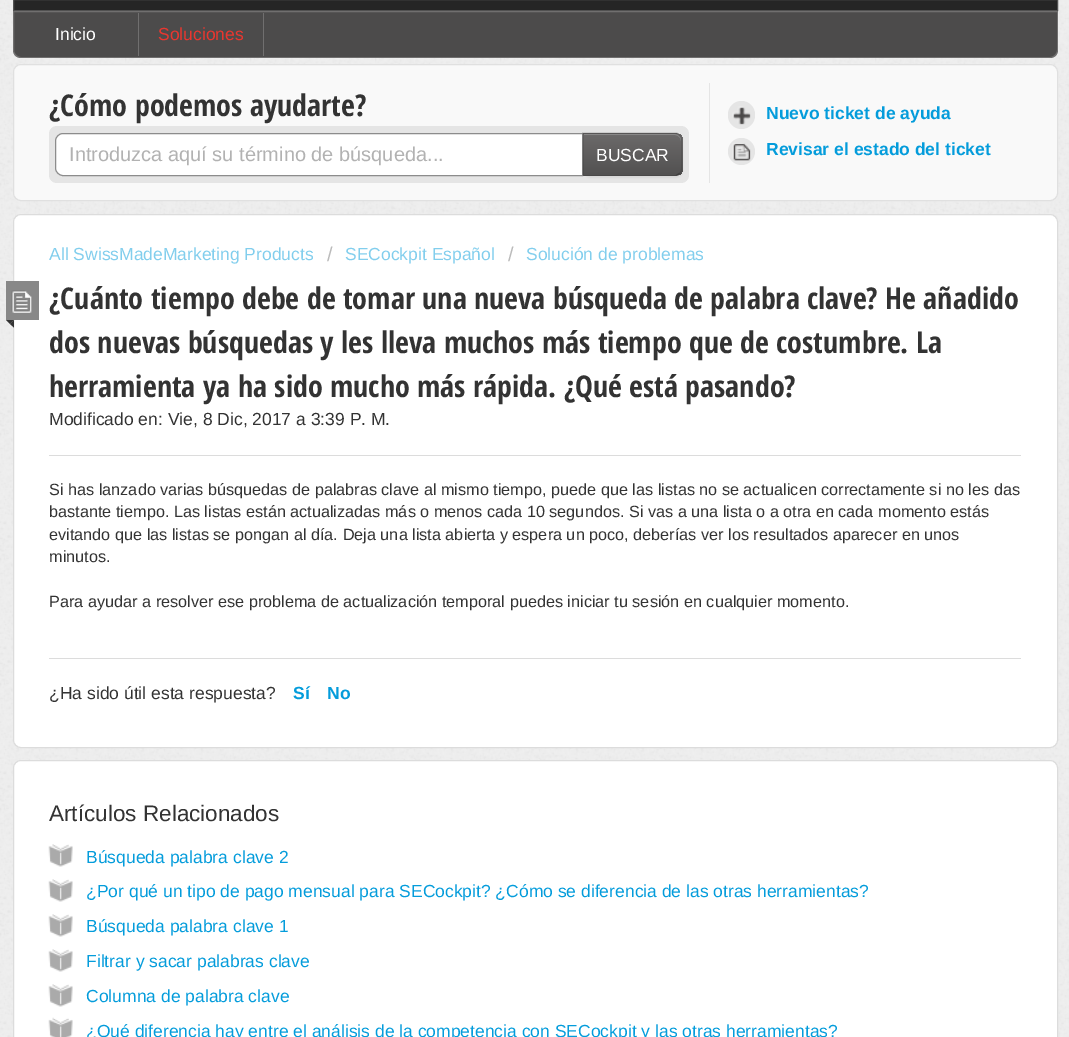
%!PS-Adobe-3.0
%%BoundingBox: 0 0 1069 1037
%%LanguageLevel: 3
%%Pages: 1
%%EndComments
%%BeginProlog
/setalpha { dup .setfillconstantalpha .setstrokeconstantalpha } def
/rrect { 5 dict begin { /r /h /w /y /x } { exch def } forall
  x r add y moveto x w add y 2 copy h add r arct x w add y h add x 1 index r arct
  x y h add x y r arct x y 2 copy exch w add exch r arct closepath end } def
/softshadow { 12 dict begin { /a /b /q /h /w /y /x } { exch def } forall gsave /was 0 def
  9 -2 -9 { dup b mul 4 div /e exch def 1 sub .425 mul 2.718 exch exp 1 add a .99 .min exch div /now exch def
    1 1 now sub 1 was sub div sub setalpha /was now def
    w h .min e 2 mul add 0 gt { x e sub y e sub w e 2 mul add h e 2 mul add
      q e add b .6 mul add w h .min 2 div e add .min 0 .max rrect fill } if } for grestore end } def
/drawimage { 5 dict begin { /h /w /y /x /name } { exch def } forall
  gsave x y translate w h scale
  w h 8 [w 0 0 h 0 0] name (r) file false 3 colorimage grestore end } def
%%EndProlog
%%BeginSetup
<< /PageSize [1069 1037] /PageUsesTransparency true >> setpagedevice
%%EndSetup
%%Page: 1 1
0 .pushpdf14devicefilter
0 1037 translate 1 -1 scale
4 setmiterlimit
0.937 setgray
0 0 1069 1037 rectfill
(images/1.raw) 0 0 1069 1037 drawimage
0.145 setgray
newpath 13.5 -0.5 moveto 1057.5 -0.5 lineto 1057.5 10.5 lineto 13.5 10.5 lineto closepath gsave fill grestore
0.318 setgray
stroke
0.298 0.294 0.294 setrgbcolor
newpath 13 11 moveto 1058 11 lineto 1058 50 lineto 1058 54.5 1054.5 58 1050 58 curveto 21 58 lineto 16.5 58 13 54.5 13 50 curveto closepath fill
0.2 setalpha
1 setgray
newpath 13.5 11.5 moveto 1057.5 11.5 lineto 1057.5 50 lineto 1057.5 54 1054 57.5 1050 57.5 curveto 21 57.5 lineto 17 57.5 13.5 54 13.5 50 curveto closepath stroke
1 setalpha
0.439 0.435 0.435 setrgbcolor
138 13 1 43 rectfill
263 13 1 43 rectfill
0.976 setgray
13.5 64.5 1044 136 7.5 rrect gsave fill grestore
0.878 setgray
stroke
0.898 setgray
709 83 1 100 rectfill
49 126 640 57 8 rrect fill
1 setgray
newpath 63 133.5 moveto 582.5 133.5 lineto 582.5 175.5 lineto 63 175.5 lineto 59 175.5 55.5 172 55.5 168 curveto 55.5 141 lineto 55.5 137 59 133.5 63 133.5 curveto closepath gsave fill grestore
0.549 setgray
stroke
0 setgray
583 134 100 44 8 1 0.05 softshadow
0.384 0.376 0.376 setrgbcolor
newpath 583 133 moveto 675 133 lineto 679.5 133 683 136.5 683 141 curveto 683 168 lineto 683 172.5 679.5 176 675 176 curveto 583 176 lineto closepath fill
gsave
newpath 583 133 moveto 675 133 lineto 679.5 133 683 136.5 683 141 curveto 683 168 lineto 683 172.5 679.5 176 675 176 curveto 583 176 lineto closepath clip newpath
gsave newpath 583 134 moveto 683 134 lineto 683 175 lineto 583 175 lineto closepath clip newpath
<< /ShadingType 2 /ColorSpace /DeviceRGB /Coords [633 134 633 175] /Extend [true true] /Function << /FunctionType 2 /Domain [0 1] /C0 [0.424 0.416 0.416] /C1 [0.322 0.318 0.318] /N 1 >> >> shfill grestore
grestore
0.537 0.533 0.533 setrgbcolor
newpath 584 135 moveto 675 135 lineto 678 135 681 138 681 141 curveto 681 140 lineto 681 137 678 134 675 134 curveto 584 134 lineto closepath fill
0.1 setalpha
0 setgray
newpath 584 134 moveto 582 132 lineto 677 132 lineto 680 135 lineto 679 136 lineto 678 135 676 134 675 134 curveto closepath fill
newpath 680 135 moveto 681.5 136 682 138 682 140 curveto 682 169 lineto 682 171 681.5 172.5 680 174 curveto 679 173 lineto 680.5 172 681 170.5 681 169 curveto 681 140 lineto 681 138.5 680 137 679 136 curveto closepath fill
0.25 setalpha
newpath 680 174 moveto 676 176 lineto 583 176 lineto 584 175 lineto 676 175 lineto 679 173 lineto closepath fill
0.1 setalpha
newpath 584 134 moveto 584 175 lineto 582 176 lineto 582 132 lineto closepath fill
1 setalpha
0.898 setgray
728 101 27 28 13.5 rrect fill
(images/2.raw) 732 106 19 19 drawimage
newpath 741.5 151.5 13.5 0 360 arc closepath fill
(images/3.raw) 732 143 19 18 drawimage
1 setgray
13.5 214.5 1044 533 7.5 rrect gsave fill grestore
0.863 setgray
stroke
0.533 setgray
6 281 33 39 rectfill
(images/4.raw) 11 290 21 23 drawimage
0.2 setgray
newpath 6 320 moveto 14 320 lineto 10 324 lineto closepath fill
newpath 14 320 moveto 14 327.5 lineto 10 324 lineto closepath fill
0.863 setgray
49 455 972 1 rectfill
49 658 972 1 rectfill
1 setgray
13.5 760.5 1044 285 7.5 rrect gsave fill grestore
0.863 setgray
stroke
(images/5.raw) 48 844 25 23 drawimage
(images/5.raw) 48 879 25 23 drawimage
(images/5.raw) 48 914 25 23 drawimage
(images/5.raw) 48 949 25 23 drawimage
(images/5.raw) 48 984 25 23 drawimage
(images/6.raw) 48 1017 25 20 drawimage
/LiberationSans-Regular [17.5 0 0 -17.5 0 0] selectfont
1 setgray
55 40 moveto (Inicio) show
0.914 0.212 0.184 setrgbcolor
158 40 moveto (Soluciones) show
/OpenSansCondensed-Bold [30 0 0 -30 0 0] selectfont
0.2 setgray
49 116 moveto (¿Cómo podemos ayudarte?) show
/LiberationSans-Regular [20 0 0 -20 0 0] selectfont
0.698 setgray
69 161 moveto (Introduzca aquí su término de búsqueda...) show
/LiberationSans-Regular [17.5 0 0 -17.5 0 0] selectfont
1 setgray
596 161 moveto (BUSCAR) show
/LiberationSans-Bold [17.5 0 0 -17.5 0 0] selectfont
0.016 0.612 0.859 setrgbcolor
766 119 moveto (Nuevo ticket de ayuda) show
766 155 moveto (Revisar el estado del ticket) show
/LiberationSans-Regular [17.5 0 0 -17.5 0 0] selectfont
0.51 0.808 0.929 setrgbcolor
49 260 moveto (All SwissMadeMarketing Products) show
/LiberationSans-Regular [20 0 0 -20 0 0] selectfont
0.733 setgray
327 261 moveto (/) show
/LiberationSans-Regular [17.5 0 0 -17.5 0 0] selectfont
0.51 0.808 0.929 setrgbcolor
345 260 moveto (SECockpit Español) show
/LiberationSans-Regular [20 0 0 -20 0 0] selectfont
0.733 setgray
508 261 moveto (/) show
/LiberationSans-Regular [17.5 0 0 -17.5 0 0] selectfont
0.51 0.808 0.929 setrgbcolor
526 260 moveto (Solución de problemas) show
/OpenSansCondensed-Bold [30 0 0 -30 0 0] selectfont
0.2 setgray
49 309 moveto (¿Cuánto tiempo debe de tomar una nueva búsqueda de palabra clave? He añadido) show
49 353 moveto (dos nuevas búsquedas y les lleva muchos más tiempo que de costumbre. La) show
49 397 moveto (herramienta ya ha sido mucho más rápida. ¿Qué está pasando?) show
/LiberationSans-Regular [17.5 0 0 -17.5 0 0] selectfont
49 425 moveto (Modificado en: Vie, 8 Dic, 2017 a 3:39 P. M.) show
/LiberationSans-Regular [16.25 0 0 -16.25 0 0] selectfont
49 495 moveto (Si has lanzado varias búsquedas de palabras clave al mismo tiempo, puede que las listas no se actualicen correctamente si no les das) show
49 517 moveto (bastante tiempo. Las listas están actualizadas más o menos cada 10 segundos. Si vas a una lista o a otra en cada momento estás) show
49 540 moveto (evitando que las listas se pongan al día. Deja una lista abierta y espera un poco, deberías ver los resultados aparecer en unos) show
49 562 moveto (minutos.) show
49 607 moveto (Para ayudar a resolver ese problema de actualización temporal puedes iniciar tu sesión en cualquier momento.) show
/LiberationSans-Regular [17.5 0 0 -17.5 0 0] selectfont
49 699 moveto (¿Ha sido útil esta respuesta?) show
/LiberationSans-Bold [17.5 0 0 -17.5 0 0] selectfont
0.016 0.612 0.859 setrgbcolor
293 699 moveto (Sí) show
327 699 moveto (No) show
/LiberationSans-Regular [22.5 0 0 -22.5 0 0] selectfont
0.2 setgray
49 821 moveto (Artículos Relacionados) show
/LiberationSans-Regular [17.5 0 0 -17.5 0 0] selectfont
0.016 0.612 0.859 setrgbcolor
86 863 moveto (Búsqueda palabra clave 2) show
86 897 moveto (¿Por qué un tipo de pago mensual para SECockpit? ¿Cómo se diferencia de las otras herramientas?) show
86 932 moveto (Búsqueda palabra clave 1) show
86 967 moveto (Filtrar y sacar palabras clave) show
86 1002 moveto (Columna de palabra clave) show
86 1037 moveto (¿Qué diferencia hay entre el análisis de la competencia con SECockpit y las otras herramientas?) show
.poppdf14devicefilter showpage
%%EOF
